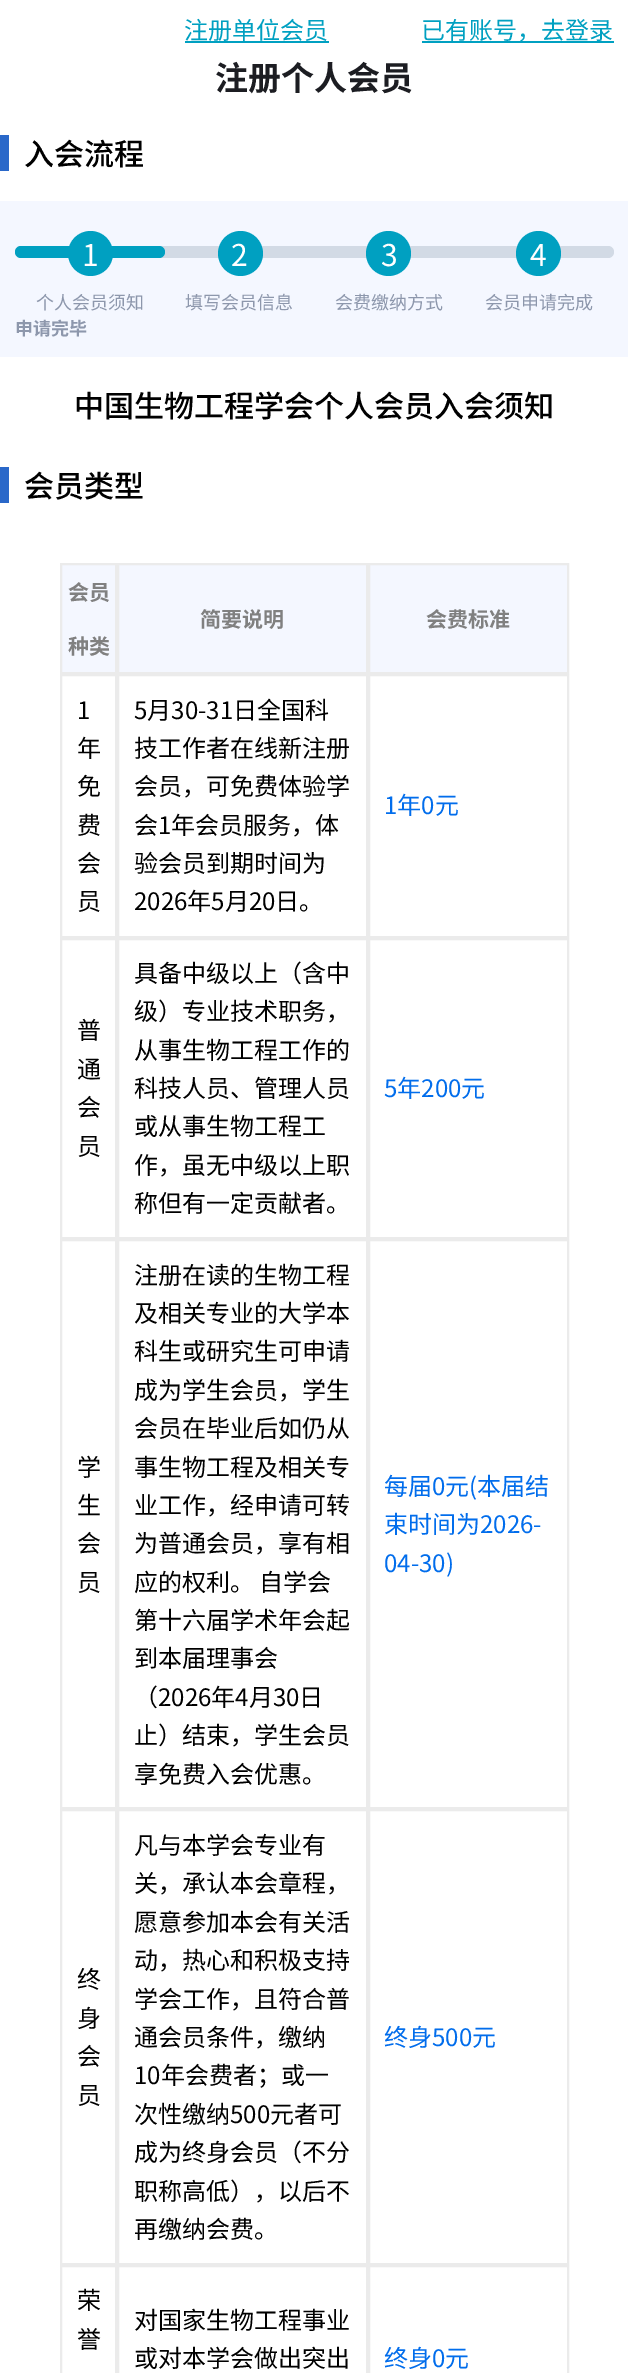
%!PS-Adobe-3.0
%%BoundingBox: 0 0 628 2373
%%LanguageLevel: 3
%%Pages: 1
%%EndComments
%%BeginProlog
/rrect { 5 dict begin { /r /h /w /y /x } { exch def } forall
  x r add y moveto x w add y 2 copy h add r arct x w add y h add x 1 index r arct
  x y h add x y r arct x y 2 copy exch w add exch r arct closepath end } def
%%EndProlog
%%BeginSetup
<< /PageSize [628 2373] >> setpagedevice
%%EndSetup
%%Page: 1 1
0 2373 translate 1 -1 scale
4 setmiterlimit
1 setgray
0 0 628 2373 rectfill
0 0.627 0.757 setrgbcolor
185 41 144 2 rectfill
422 41 192 2 rectfill
0.165 0.408 0.788 setrgbcolor
0 135 9 36 rectfill
0.957 0.969 1 setrgbcolor
0 201 628 156 rectfill
0.824 0.855 0.898 setrgbcolor
15 246 599 12 6 rrect fill
0 0.627 0.757 setrgbcolor
15 246 150 12 6 rrect fill
newpath 90.5 253.5 22.5 0 360 arc closepath fill
newpath 240.5 253.5 22.5 0 360 arc closepath fill
newpath 388.5 253.5 22.5 0 360 arc closepath fill
newpath 538.5 253.5 22.5 0 360 arc closepath fill
0.165 0.408 0.788 setrgbcolor
0 467 9 36 rectfill
0.957 0.969 1 setrgbcolor
newpath 61 564 moveto 116 564 lineto 116 673 lineto 61 673 lineto closepath gsave fill grestore
0.922 setgray
2 setlinewidth
stroke
0.957 0.969 1 setrgbcolor
newpath 118 564 moveto 367 564 lineto 367 673 lineto 118 673 lineto closepath gsave fill grestore
0.922 setgray
stroke
0.957 0.969 1 setrgbcolor
newpath 369 564 moveto 568 564 lineto 568 673 lineto 369 673 lineto closepath gsave fill grestore
0.922 setgray
stroke
61 675 55 262 rectstroke
118 675 249 262 rectstroke
369 675 199 262 rectstroke
61 939 55 299 rectstroke
118 939 249 299 rectstroke
369 939 199 299 rectstroke
61 1240 55 568 rectstroke
118 1240 249 568 rectstroke
369 1240 199 568 rectstroke
61 1810 55 454 rectstroke
118 1810 249 454 rectstroke
369 1810 199 454 rectstroke
61 2266 55 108 rectstroke
118 2266 249 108 rectstroke
369 2266 199 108 rectstroke
/NotoSansCJKSC-Regular [24 0 0 -24 0 0] selectfont
0 0.627 0.757 setrgbcolor
184 39 moveto (注册单位会员) show
421 39 moveto (已有账号，去登录) show
/NotoSansCJKSC-Medium [30 0 0 -30 0 0] selectfont
0 setgray
24 165 moveto (入会流程) show
/NotoSansCJKSC-Regular [30 0 0 -30 0 0] selectfont
1 setgray
82 266 moveto (1) show
/NotoSansCJKSC-Regular [18 0 0 -18 0 0] selectfont
0.553 0.592 0.675 setrgbcolor
36 309 moveto (个人会员须知) show
/NotoSansCJKSC-Regular [30 0 0 -30 0 0] selectfont
1 setgray
231 266 moveto (2) show
/NotoSansCJKSC-Regular [18 0 0 -18 0 0] selectfont
0.553 0.592 0.675 setrgbcolor
185 309 moveto (填写会员信息) show
/NotoSansCJKSC-Regular [30 0 0 -30 0 0] selectfont
1 setgray
381 266 moveto (3) show
/NotoSansCJKSC-Regular [18 0 0 -18 0 0] selectfont
0.553 0.592 0.675 setrgbcolor
335 309 moveto (会费缴纳方式) show
/NotoSansCJKSC-Regular [30 0 0 -30 0 0] selectfont
1 setgray
530 266 moveto (4) show
/NotoSansCJKSC-Regular [18 0 0 -18 0 0] selectfont
0.553 0.592 0.675 setrgbcolor
485 309 moveto (会员申请完成) show
/NotoSansCJKSC-Bold [18 0 0 -18 0 0] selectfont
15 335 moveto (申请完毕) show
/NotoSansCJKSC-Medium [30 0 0 -30 0 0] selectfont
0 setgray
74 417 moveto (中国生物工程学会个人会员入会须知) show
24 497 moveto (会员类型) show
/NotoSansCJKSC-Bold [21 0 0 -21 0 0] selectfont
0.502 setgray
68 600 moveto (会员) show
68 654 moveto (种类) show
200 627 moveto (简要说明) show
426 627 moveto (会费标准) show
/NotoSansCJKSC-Regular [24 0 0 -24 0 0] selectfont
0 setgray
77 719 moveto (1) show
77 757 moveto (年) show
77 795 moveto (免) show
77 834 moveto (费) show
77 872 moveto (会) show
77 910 moveto (员) show
134 719 moveto (5月30-31日全国科) show
134 757 moveto (技工作者在线新注册) show
134 795 moveto (会员，可免费体验学) show
134 834 moveto (会1年会员服务，体) show
134 872 moveto (验会员到期时间为) show
134 910 moveto (2026年5月20日。) show
0.004 0.427 0.925 setrgbcolor
384 814 moveto (1年0元) show
0 setgray
77 1039 moveto (普) show
77 1078 moveto (通) show
77 1116 moveto (会) show
77 1155 moveto (员) show
134 982 moveto (具备中级以上（含中) show
134 1020 moveto (级）专业技术职务，) show
134 1059 moveto (从事生物工程工作的) show
134 1097 moveto (科技人员、管理人员) show
134 1135 moveto (或从事生物工程工) show
134 1174 moveto (作，虽无中级以上职) show
134 1212 moveto (称但有一定贡献者。) show
0.004 0.427 0.925 setrgbcolor
384 1097 moveto (5年200元) show
0 setgray
77 1476 moveto (学) show
77 1514 moveto (生) show
77 1552 moveto (会) show
77 1591 moveto (员) show
134 1284 moveto (注册在读的生物工程) show
134 1322 moveto (及相关专业的大学本) show
134 1360 moveto (科生或研究生可申请) show
134 1399 moveto (成为学生会员，学生) show
134 1437 moveto (会员在毕业后如仍从) show
134 1476 moveto (事生物工程及相关专) show
134 1514 moveto (业工作，经申请可转) show
134 1552 moveto (为普通会员，享有相) show
134 1591 moveto (应的权利。 自学会) show
134 1629 moveto (第十六届学术年会起) show
134 1667 moveto (到本届理事会) show
134 1706 moveto (（2026年4月30日) show
134 1744 moveto (止）结束，学生会员) show
134 1783 moveto (享免费入会优惠。) show
0.004 0.427 0.925 setrgbcolor
384 1495 moveto (每届0元\(本届结) show
384 1533 moveto (束时间为2026-) show
384 1572 moveto (04-30\)) show
0 setgray
77 1988 moveto (终) show
77 2027 moveto (身) show
77 2065 moveto (会) show
77 2104 moveto (员) show
134 1854 moveto (凡与本学会专业有) show
134 1892 moveto (关，承认本会章程，) show
134 1931 moveto (愿意参加本会有关活) show
134 1969 moveto (动，热心和积极支持) show
134 2008 moveto (学会工作，且符合普) show
134 2046 moveto (通会员条件，缴纳) show
134 2084 moveto (10年会费者；或一) show
134 2123 moveto (次性缴纳500元者可) show
134 2161 moveto (成为终身会员（不分) show
134 2200 moveto (职称高低），以后不) show
134 2238 moveto (再缴纳会费。) show
0.004 0.427 0.925 setrgbcolor
384 2046 moveto (终身500元) show
0 setgray
77 2309 moveto (荣) show
77 2348 moveto (誉) show
134 2329 moveto (对国家生物工程事业) show
134 2367 moveto (或对本学会做出突出) show
0.004 0.427 0.925 setrgbcolor
384 2367 moveto (终身0元) show
/NotoSansCJKSC-Bold [33 0 0 -33 0 0] selectfont
0.11 0.114 0.133 setrgbcolor
215 90 moveto (注册个人会员) show
showpage
%%EOF
